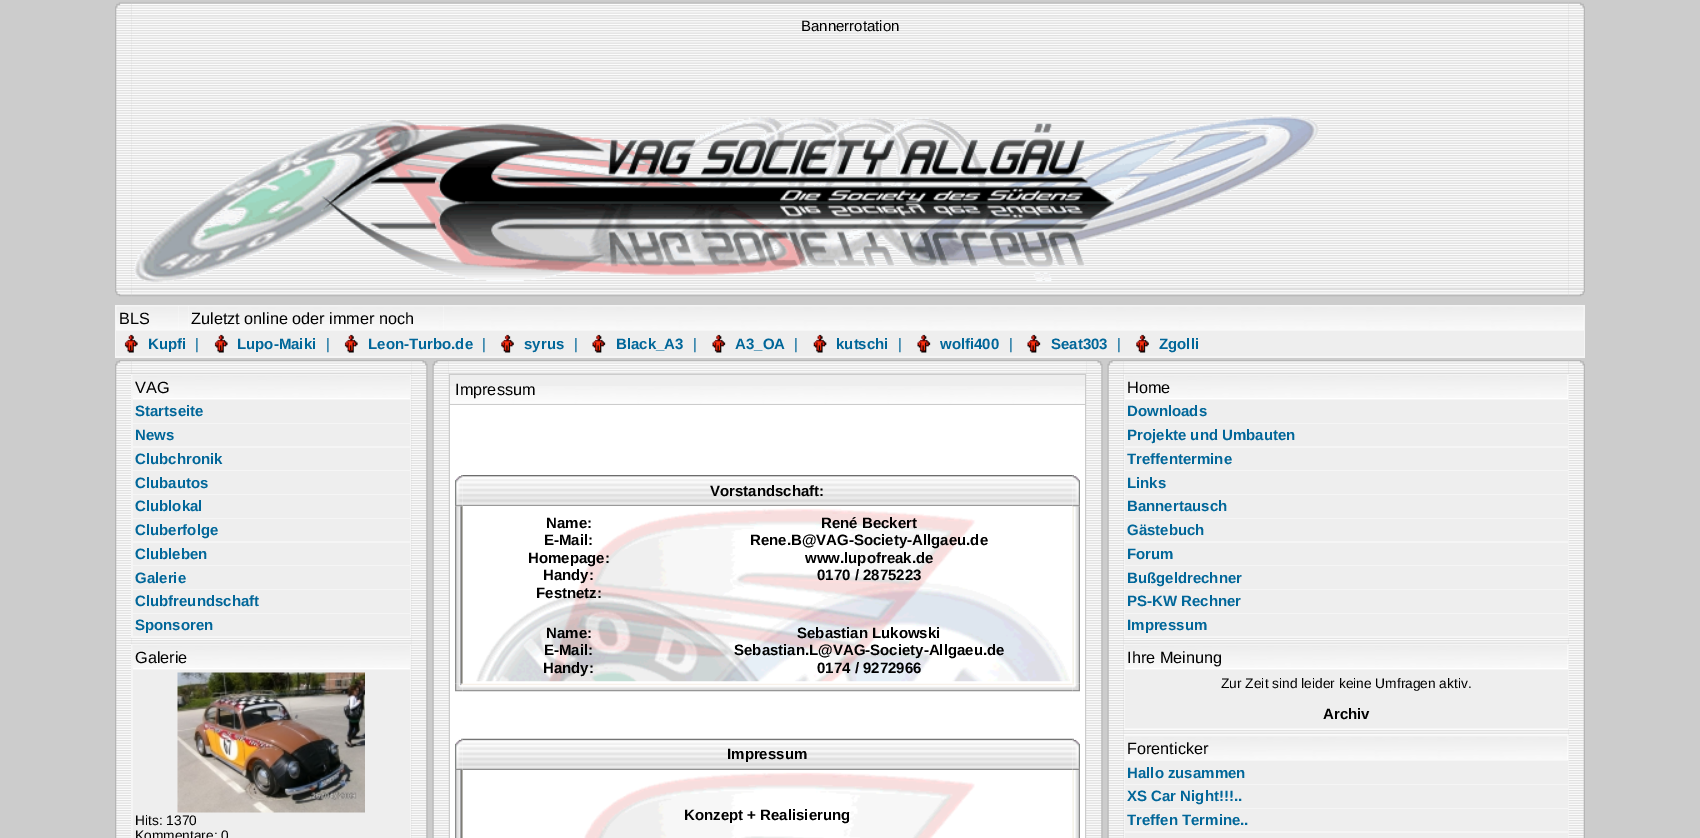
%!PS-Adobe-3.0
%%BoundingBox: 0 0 1700 838
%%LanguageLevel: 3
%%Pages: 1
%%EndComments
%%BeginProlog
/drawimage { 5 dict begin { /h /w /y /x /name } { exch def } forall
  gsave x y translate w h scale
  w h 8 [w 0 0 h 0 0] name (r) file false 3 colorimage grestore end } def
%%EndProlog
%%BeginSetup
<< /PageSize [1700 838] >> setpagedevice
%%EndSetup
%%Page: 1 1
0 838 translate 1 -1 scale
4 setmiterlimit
0.8 setgray
0 0 1700 838 rectfill
(images/1.raw) 115 2 16 14 drawimage
(images/2.raw) 131 2 1438 15 drawimage
(images/3.raw) 1569 2 16 14 drawimage
(images/4.raw) 115 16 17 273 drawimage
(images/5.raw) 131 16 1438 273 drawimage
(images/6.raw) 133 115 1186 168 drawimage
(images/7.raw) 1569 16 16 273 drawimage
(images/8.raw) 115 289 16 8 drawimage
(images/9.raw) 131 289 1438 8 drawimage
(images/10.raw) 1569 289 16 8 drawimage
0.961 setgray
115 305 1470 53 rectfill
1 setgray
444 306 1140 24 rectfill
(images/11.raw) 444 306 1140 24 drawimage
116 306 328 24 rectfill
(images/12.raw) 116 306 63 24 drawimage
(images/13.raw) 179 306 10 24 drawimage
(images/14.raw) 189 306 255 24 drawimage
0.933 setgray
116 331 1468 25 rectfill
(images/15.raw) 124 334 14 19 drawimage
(images/16.raw) 214 334 14 19 drawimage
(images/15.raw) 344 334 14 19 drawimage
(images/17.raw) 501 334 13 19 drawimage
(images/18.raw) 592 334 14 19 drawimage
(images/18.raw) 712 334 14 19 drawimage
(images/19.raw) 813 334 14 19 drawimage
(images/18.raw) 917 334 14 19 drawimage
(images/18.raw) 1027 334 14 19 drawimage
(images/20.raw) 1136 334 13 19 drawimage
(images/22.raw) 131 360 281 14 drawimage
(images/24.raw) 115 373 17 465 drawimage
(images/21.raw) 115 360 16 14 drawimage
(images/25.raw) 131 374 281 464 drawimage
(images/28.raw) 411 373 17 465 drawimage
(images/23.raw) 411 360 17 14 drawimage
0.961 setgray
131 374 280 264 rectfill
1 setgray
133 398 277 1 rectfill
(images/26.raw) 132 375 278 23 drawimage
0.933 setgray
133 400 277 23 rectfill
133 424 277 22 rectfill
133 448 277 22 rectfill
133 471 277 23 rectfill
133 495 277 23 rectfill
133 519 277 22 rectfill
133 543 277 22 rectfill
133 566 277 23 rectfill
133 590 277 23 rectfill
133 614 277 22 rectfill
0.961 setgray
131 644 280 194 rectfill
1 setgray
133 668 277 1 rectfill
(images/26.raw) 132 645 278 23 drawimage
0.933 setgray
133 670 277 168 rectfill
(images/27.raw) 177 672 188 141 drawimage
(images/30.raw) 448 360 639 14 drawimage
(images/31.raw) 432 373 17 465 drawimage
(images/29.raw) 432 360 17 14 drawimage
(images/32.raw) 1086 374 1 464 drawimage
(images/28.raw) 1086 373 17 465 drawimage
(images/23.raw) 1086 360 17 14 drawimage
450 375 635 29 rectfill
(images/33.raw) 450 386 635 18 drawimage
1 setgray
450 405 635 433 rectfill
(images/35.raw) 462 475 611 32 drawimage
(images/37.raw) 455 506 8 178 drawimage
(images/34.raw) 455 475 8 32 drawimage
463 506 610 1 rectfill
(images/39.raw) 1072 506 8 178 drawimage
(images/36.raw) 1072 475 8 32 drawimage
(images/38.raw) 476 508 594 174 drawimage
(images/41.raw) 462 683 611 9 drawimage
(images/40.raw) 455 683 8 9 drawimage
(images/42.raw) 1072 683 8 9 drawimage
(images/44.raw) 462 738 611 32 drawimage
(images/43.raw) 455 738 8 32 drawimage
(images/45.raw) 1072 738 8 32 drawimage
(images/46.raw) 455 770 8 68 drawimage
(images/47.raw) 584 772 391 66 drawimage
(images/48.raw) 1072 770 8 68 drawimage
(images/50.raw) 1123 360 446 14 drawimage
(images/31.raw) 1107 373 17 465 drawimage
(images/49.raw) 1107 360 17 14 drawimage
(images/52.raw) 1124 638 445 97 drawimage
0.961 setgray
1124 374 445 264 rectfill
1124 644 445 85 rectfill
1124 735 445 103 rectfill
(images/55.raw) 1568 373 17 465 drawimage
(images/51.raw) 1569 360 16 14 drawimage
1 setgray
1125 375 443 24 rectfill
(images/53.raw) 1125 375 443 23 drawimage
0.933 setgray
1125 400 443 23 rectfill
1125 424 443 22 rectfill
1125 448 443 22 rectfill
1125 471 443 23 rectfill
1125 495 443 23 rectfill
1125 519 443 22 rectfill
1125 543 443 22 rectfill
1125 566 443 23 rectfill
1125 590 443 23 rectfill
1125 614 443 22 rectfill
1 setgray
1125 645 443 24 rectfill
(images/53.raw) 1125 645 443 23 drawimage
0.933 setgray
1125 670 443 58 rectfill
1 setgray
1125 736 443 24 rectfill
(images/54.raw) 1125 736 443 24 drawimage
0.933 setgray
1125 761 443 23 rectfill
1125 785 443 23 rectfill
1125 809 443 22 rectfill
1125 833 443 5 rectfill
/LiberationSans-Regular [15 0 0 -15 0 0] selectfont
0 setgray
801 31 moveto (Bannerrotation) show
/LiberationSans-Regular [16.25 0 0 -16.25 0 0] selectfont
119 324 moveto (BLS) show
191 324 moveto (Zuletzt online oder immer noch) show
/LiberationSans-Bold [15 0 0 -15 0 0] selectfont
0 0.4 0.6 setrgbcolor
148 349 moveto (Kupfi) show
/LiberationSans-Regular [15 0 0 -15 0 0] selectfont
195 349 moveto (|) show
/LiberationSans-Bold [15 0 0 -15 0 0] selectfont
237 349 moveto (Lupo-Maiki) show
/LiberationSans-Regular [15 0 0 -15 0 0] selectfont
326 349 moveto (|) show
/LiberationSans-Bold [15 0 0 -15 0 0] selectfont
368 349 moveto (Leon-Turbo.de) show
/LiberationSans-Regular [15 0 0 -15 0 0] selectfont
482 349 moveto (|) show
/LiberationSans-Bold [15 0 0 -15 0 0] selectfont
524 349 moveto (syrus) show
/LiberationSans-Regular [15 0 0 -15 0 0] selectfont
574 349 moveto (|) show
/LiberationSans-Bold [15 0 0 -15 0 0] selectfont
616 349 moveto (Black_A3) show
/LiberationSans-Regular [15 0 0 -15 0 0] selectfont
693 349 moveto (|) show
/LiberationSans-Bold [15 0 0 -15 0 0] selectfont
735 349 moveto (A3_OA) show
/LiberationSans-Regular [15 0 0 -15 0 0] selectfont
794 349 moveto (|) show
/LiberationSans-Bold [15 0 0 -15 0 0] selectfont
836 349 moveto (kutschi) show
/LiberationSans-Regular [15 0 0 -15 0 0] selectfont
898 349 moveto (|) show
/LiberationSans-Bold [15 0 0 -15 0 0] selectfont
940 349 moveto (wolfi400) show
/LiberationSans-Regular [15 0 0 -15 0 0] selectfont
1009 349 moveto (|) show
/LiberationSans-Bold [15 0 0 -15 0 0] selectfont
1051 349 moveto (Seat303) show
/LiberationSans-Regular [15 0 0 -15 0 0] selectfont
1117 349 moveto (|) show
/LiberationSans-Bold [15 0 0 -15 0 0] selectfont
1159 349 moveto (Zgolli) show
/LiberationSans-Regular [16.25 0 0 -16.25 0 0] selectfont
0 setgray
135 393 moveto (VAG) show
/LiberationSans-Bold [15 0 0 -15 0 0] selectfont
0 0.4 0.6 setrgbcolor
135 416 moveto (Startseite) show
135 440 moveto (News) show
135 464 moveto (Clubchronik) show
135 488 moveto (Clubautos) show
135 511 moveto (Clublokal) show
135 535 moveto (Cluberfolge) show
135 559 moveto (Clubleben) show
135 583 moveto (Galerie) show
135 606 moveto (Clubfreundschaft) show
135 630 moveto (Sponsoren) show
/LiberationSans-Regular [16.25 0 0 -16.25 0 0] selectfont
0 setgray
135 663 moveto (Galerie) show
/LiberationSans-Regular [13.75 0 0 -13.75 0 0] selectfont
135 825 moveto (Hits: 1370) show
135 840 moveto (Kommentare: 0) show
/LiberationSans-Regular [16.25 0 0 -16.25 0 0] selectfont
455 395 moveto (Impressum) show
/LiberationSans-Bold [15 0 0 -15 0 0] selectfont
710 496 moveto (Vorstandschaft:) show
546 528 moveto (Name:) show
544 545 moveto (E-Mail:) show
528 563 moveto (Homepage:) show
543 580 moveto (Handy:) show
536 598 moveto (Festnetz:) show
821 528 moveto (René Beckert) show
750 545 moveto (Rene.B@VAG-Society-Allgaeu.de) show
805 563 moveto (www.lupofreak.de) show
817 580 moveto (0170 / 2875223) show
546 638 moveto (Name:) show
544 655 moveto (E-Mail:) show
543 673 moveto (Handy:) show
797 638 moveto (Sebastian Lukowski) show
734 655 moveto (Sebastian.L@VAG-Society-Allgaeu.de) show
817 673 moveto (0174 / 9272966) show
727 759 moveto (Impressum) show
684 820 moveto (Konzept + Realisierung) show
/LiberationSans-Regular [16.25 0 0 -16.25 0 0] selectfont
1127 393 moveto (Home) show
/LiberationSans-Bold [15 0 0 -15 0 0] selectfont
0 0.4 0.6 setrgbcolor
1127 416 moveto (Downloads) show
1127 440 moveto (Projekte und Umbauten) show
1127 464 moveto (Treffentermine) show
1127 488 moveto (Links) show
1127 511 moveto (Bannertausch) show
1127 535 moveto (Gästebuch) show
1127 559 moveto (Forum) show
1127 583 moveto (Bußgeldrechner) show
1127 606 moveto (PS-KW Rechner) show
1127 630 moveto (Impressum) show
/LiberationSans-Regular [16.25 0 0 -16.25 0 0] selectfont
0 setgray
1127 663 moveto (Ihre Meinung) show
/LiberationSans-Regular [13.75 0 0 -13.75 0 0] selectfont
1221 688 moveto (Zur Zeit sind leider keine Umfragen aktiv.) show
/LiberationSans-Bold [15 0 0 -15 0 0] selectfont
1323 719 moveto (Archiv) show
/LiberationSans-Regular [16.25 0 0 -16.25 0 0] selectfont
1127 754 moveto (Forenticker) show
/LiberationSans-Bold [15 0 0 -15 0 0] selectfont
0 0.4 0.6 setrgbcolor
1127 778 moveto (Hallo zusammen) show
1127 801 moveto (XS Car Night!!!..) show
1127 825 moveto (Treffen Termine..) show
showpage
%%EOF
